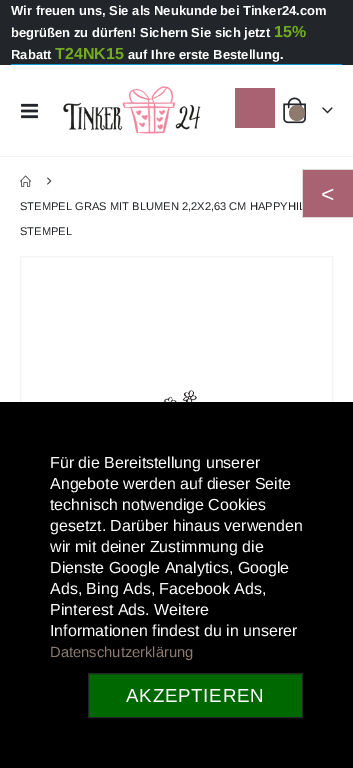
%!PS-Adobe-3.0
%%BoundingBox: 0 0 353 768
%%LanguageLevel: 3
%%Pages: 1
%%EndComments
%%BeginProlog
/drawimage { 5 dict begin { /h /w /y /x /name } { exch def } forall
  gsave x y translate w h scale
  w h 8 [w 0 0 h 0 0] name (r) file false 3 colorimage grestore end } def
%%EndProlog
%%BeginSetup
<< /PageSize [353 768] >> setpagedevice
%%EndSetup
%%Page: 1 1
0 768 translate 1 -1 scale
4 setmiterlimit
1 setgray
0 0 353 768 rectfill
0.957 setgray
0 156 353 1 rectfill
0.133 0.145 0.161 setrgbcolor
0 0 353 65 rectfill
0.055 0.584 0.847 setrgbcolor
11 64 331 1 rectfill
(images/1.raw) 21 103 17 16 drawimage
(images/2.raw) 63 86 138 48 drawimage
0.659 0.384 0.447 setrgbcolor
235 88 40 40 rectfill
(images/3.raw) 283 97 23 27 drawimage
0.557 0.482 0.431 setrgbcolor
newpath 297 113 8 0 360 arc closepath fill
(images/4.raw) 322 107 11 7 drawimage
0.863 0.863 0.855 setrgbcolor
302 169 51 1 rectfill
302 217 51 1 rectfill
0.957 setgray
20.5 256.5 312 312 rectstroke
(images/5.raw) 136 389 85 13 drawimage
(images/6.raw) 20 175 12 12 drawimage
(images/7.raw) 47 177 5 8 drawimage
0 setgray
0 402 353 366 rectfill
0 0.408 0 setrgbcolor
newpath 88.5 673.5 moveto 302.5 673.5 lineto 302.5 717.5 lineto 88.5 717.5 lineto closepath gsave fill grestore
0.133 0.145 0.161 setrgbcolor
stroke
/LiberationSans-Bold [13 0 0 -13 0 0] selectfont
1 setgray
11 15 moveto (Wir freuen uns, Sie als Neukunde bei Tinker24.com) show
11 37 moveto (begrüßen zu dürfen! Sichern Sie sich jetzt) show
/LiberationSans-Bold [16 0 0 -16 0 0] selectfont
0.455 0.675 0.129 setrgbcolor
274 37 moveto (15%) show
/LiberationSans-Bold [13 0 0 -13 0 0] selectfont
1 setgray
11 59 moveto (Rabatt) show
/LiberationSans-Bold [16 0 0 -16 0 0] selectfont
0.455 0.675 0.129 setrgbcolor
55 59 moveto (T24NK15) show
/LiberationSans-Bold [13 0 0 -13 0 0] selectfont
1 setgray
128 59 moveto (auf Ihre erste Bestellung.) show
/LiberationSans-Regular [11.15 0 0 -11.15 0 0] selectfont
0.133 0.145 0.161 setrgbcolor
20 210 moveto (STEMPEL GRAS MIT BLUMEN 2,2X2,63 CM HAPPYHIL) show
0.659 0.384 0.447 setrgbcolor
303 170 50 47 rectfill
/LiberationSans-Regular [23 0 0 -23 0 0] selectfont
1 setgray
321 202 moveto (<) show
0.863 0.863 0.855 setrgbcolor
302 169 1 49 rectfill
/LiberationSans-Regular [11.15 0 0 -11.15 0 0] selectfont
0.133 0.145 0.161 setrgbcolor
20 235 moveto (STEMPEL) show
/LiberationSans-Regular [16 0 0 -16 0 0] selectfont
1 setgray
50 468 moveto (Für die Bereitstellung unserer) show
50 489 moveto (Angebote werden auf dieser Seite) show
50 510 moveto (technisch notwendige Cookies) show
50 531 moveto (gesetzt. Darüber hinaus verwenden) show
50 552 moveto (wir mit deiner Zustimmung die) show
50 573 moveto (Dienste Google Analytics, Google) show
50 594 moveto (Ads, Bing Ads, Facebook Ads,) show
50 615 moveto (Pinterest Ads. Weitere) show
50 636 moveto (Informationen findest du in unserer) show
/LiberationSans-Regular [14.75 0 0 -14.75 0 0] selectfont
0.557 0.482 0.431 setrgbcolor
50 657 moveto (Datenschutzerklärung) show
/LiberationSans-Regular [18.75 0 0 -18.75 0 0] selectfont
1 setgray
126 702 moveto 0.75 0 (AKZEPTIEREN) ashow
showpage
%%EOF
